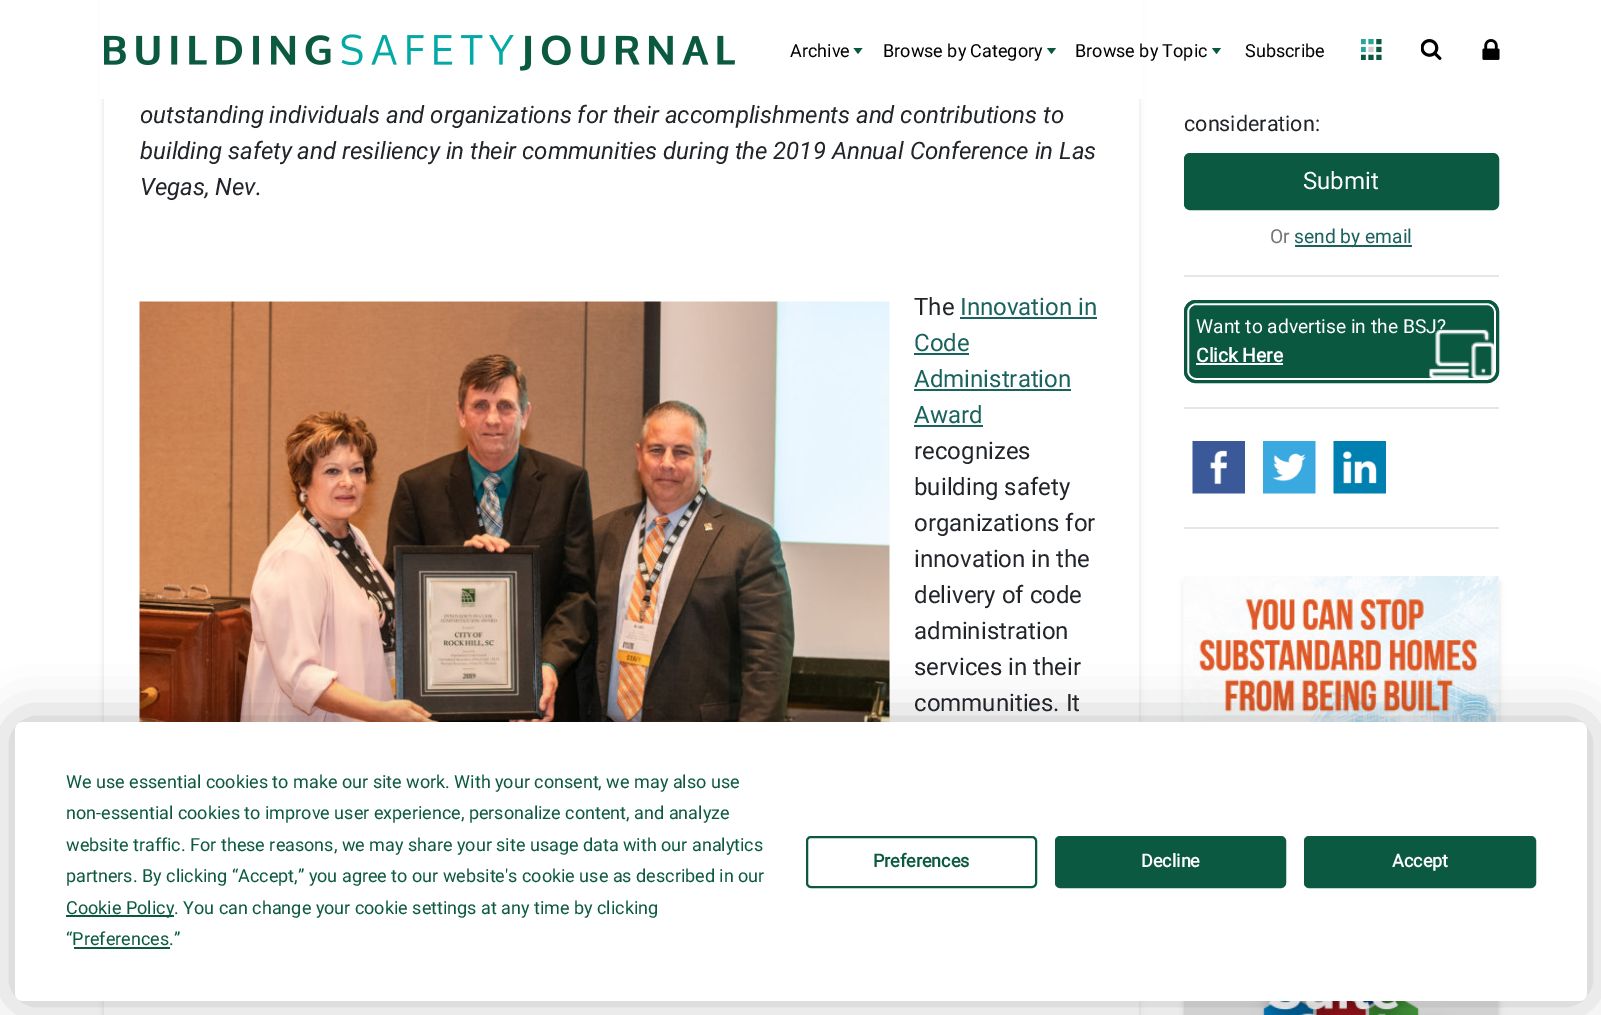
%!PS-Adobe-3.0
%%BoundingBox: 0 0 1601 1015
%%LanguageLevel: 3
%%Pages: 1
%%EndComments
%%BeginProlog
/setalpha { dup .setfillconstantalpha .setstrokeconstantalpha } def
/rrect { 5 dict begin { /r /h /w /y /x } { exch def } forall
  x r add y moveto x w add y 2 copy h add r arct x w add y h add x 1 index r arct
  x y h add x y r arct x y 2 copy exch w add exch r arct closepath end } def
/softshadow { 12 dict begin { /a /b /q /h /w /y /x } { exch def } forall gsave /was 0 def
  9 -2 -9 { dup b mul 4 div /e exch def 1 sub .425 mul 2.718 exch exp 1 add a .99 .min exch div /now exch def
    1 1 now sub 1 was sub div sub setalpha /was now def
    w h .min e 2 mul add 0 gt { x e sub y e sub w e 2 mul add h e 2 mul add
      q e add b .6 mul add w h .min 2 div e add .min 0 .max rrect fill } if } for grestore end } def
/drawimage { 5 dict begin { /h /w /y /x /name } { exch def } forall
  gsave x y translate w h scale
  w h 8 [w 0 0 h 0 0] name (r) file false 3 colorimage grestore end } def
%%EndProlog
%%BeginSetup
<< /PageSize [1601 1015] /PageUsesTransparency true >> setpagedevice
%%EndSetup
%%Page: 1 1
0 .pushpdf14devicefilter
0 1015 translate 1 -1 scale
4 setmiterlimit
1 setgray
0 0 1601 1015 rectfill
0 setgray
104 -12 1035 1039 3 3 0.12 softshadow
1 setgray
100 0 1043 99 rectfill
(images/1.raw) 104 34 631 37 drawimage
0.043 0.345 0.251 setrgbcolor
newpath 853.5 48 moveto 862.5 48 lineto 858 54 lineto closepath fill
newpath 1047 48 moveto 1056 48 lineto 1051.5 54 lineto closepath fill
newpath 1212 48 moveto 1221 48 lineto 1216.5 54 lineto closepath fill
(images/2.raw) 1361 39 21 21 drawimage
(images/3.raw) 1421 39 21 21 drawimage
(images/4.raw) 1482 39 18 21 drawimage
1 setgray
104 99 1035 916 rectfill
(images/5.raw) 139 301 751 421 drawimage
0.098 0.384 0.365 setrgbcolor
960 317 137 2 rectfill
914 353 55 2 rectfill
914 389 157 2 rectfill
914 425 69 2 rectfill
0.043 0.349 0.251 setrgbcolor
1185 154 313 55 5 rrect gsave fill grestore
2 setlinewidth
stroke
0.098 0.384 0.365 setrgbcolor
1295 245 117 2 rectfill
0.902 setgray
1184 275 315 2 rectfill
0.039 0.345 0.251 setrgbcolor
1184 300 315 83 12 rrect fill
(images/6.raw) 1429 329 67 51 drawimage
1 setgray
1188 304 307 75 8 rrect stroke
0.039 0.345 0.251 setrgbcolor
3 setlinewidth
1185.5 301.5 312 80 10.5 rrect stroke
1 setgray
1196 363 87 2 rectfill
0.902 setgray
1184 407 315 2 rectfill
(images/7.raw) 1192 441 53 53 drawimage
(images/8.raw) 1263 441 53 53 drawimage
(images/9.raw) 1333 441 53 53 drawimage
1184 527 315 2 rectfill
0 setgray
1184 582 315 315 0 3 0.12 softshadow
(images/10.raw) 1183 576 316 146 drawimage
1184 945 315 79 0 3 0.12 softshadow
(images/11.raw) 1183 1001 316 14 drawimage
15 722 1572 279 8 26 0.25 softshadow
1 setgray
15 722 1572 279 8 rrect fill
0.043 0.349 0.251 setrgbcolor
66 915 108 2 rectfill
74 947 96 2 rectfill
2 setlinewidth
807 837 229 50 4 rrect stroke
1056 837 229 50 4 rrect gsave fill grestore
stroke
1305 837 230 50 4 rrect gsave fill grestore
stroke
/Roboto-Regular [18 0 0 -18 0 0] selectfont
0 setgray
790 57 moveto (Archive) show
883 57 moveto (Browse by Category) show
1075 57 moveto (Browse by Topic) show
1245 57 moveto (Subscribe) show
/Roboto-Italic [24 0 0 -24 0 0] selectfont
0.129 0.145 0.161 setrgbcolor
140 123 moveto (outstanding individuals and organizations for their accomplishments and contributions to) show
140 159 moveto (building safety and resiliency in their communities during the 2019 Annual Conference in Las) show
140 195 moveto (Vegas, Nev.) show
/Roboto-Regular [24 0 0 -24 0 0] selectfont
914 315 moveto (The) show
0.098 0.384 0.365 setrgbcolor
960 315 moveto (Innovation in) show
914 351 moveto (Code) show
914 387 moveto (Administration) show
914 423 moveto (Award) show
0.129 0.145 0.161 setrgbcolor
914 459 moveto (recognizes) show
914 495 moveto (building safety) show
914 531 moveto (organizations for) show
914 567 moveto (innovation in the) show
914 603 moveto (delivery of code) show
914 639 moveto (administration) show
914 675 moveto (services in their) show
914 711 moveto (communities. It) show
/Roboto-Regular [21.5 0 0 -21.5 0 0] selectfont
1184 131 moveto (consideration:) show
/Roboto-Regular [24 0 0 -24 0 0] selectfont
1 setgray
1303 189 moveto (Submit) show
/Roboto-Regular [19.25 0 0 -19.25 0 0] selectfont
0.459 setgray
1270 243 moveto (Or) show
0.098 0.384 0.365 setrgbcolor
1294 243 moveto (send by email) show
1 setgray
1196 333 moveto (Want to advertise in the BSJ?) show
/Roboto-Bold [19.25 0 0 -19.25 0 0] selectfont
1196 362 moveto (Click Here) show
/Roboto-Regular [18 0 0 -18 0 0] selectfont
0.043 0.349 0.251 setrgbcolor
66 788 moveto (We use essential cookies to make our site work. With your consent, we may also use) show
66 819 moveto (non-essential cookies to improve user experience, personalize content, and analyze) show
66 851 moveto (website traffic. For these reasons, we may share your site usage data with our analytics) show
66 882 moveto (partners. By clicking “Accept,” you agree to our website's cookie use as described in our) show
66 914 moveto (Cookie Policy. You can change your cookie settings at any time by clicking) show
66 945 moveto (“Preferences.”) show
/Roboto-Bold [18 0 0 -18 0 0] selectfont
873 867 moveto (Preferences) show
1 setgray
1141 867 moveto (Decline) show
1392 867 moveto (Accept) show
.poppdf14devicefilter showpage
%%EOF
